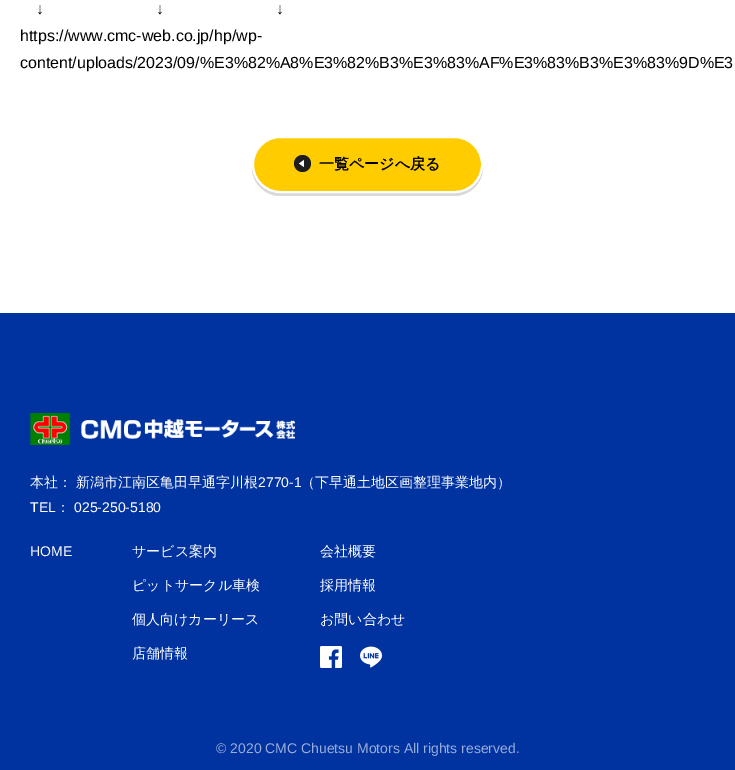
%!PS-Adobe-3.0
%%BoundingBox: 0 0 735 770
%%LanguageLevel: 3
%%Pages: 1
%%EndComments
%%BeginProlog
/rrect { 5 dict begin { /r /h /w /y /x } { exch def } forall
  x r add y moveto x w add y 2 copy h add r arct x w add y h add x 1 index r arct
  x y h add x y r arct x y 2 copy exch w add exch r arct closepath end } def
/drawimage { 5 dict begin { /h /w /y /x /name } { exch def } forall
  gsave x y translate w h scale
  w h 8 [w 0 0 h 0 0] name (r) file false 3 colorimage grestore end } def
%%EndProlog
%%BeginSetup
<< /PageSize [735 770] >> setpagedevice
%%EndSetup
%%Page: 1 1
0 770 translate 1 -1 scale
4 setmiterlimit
1 setgray
0 0 735 770 rectfill
0.851 setgray
newpath 252 166 moveto 252 168 lineto 252 183 265 196 280 196 curveto 454 196 lineto 470 196 483 183 483 168 curveto 483 166 lineto 482 181 470 193 454 193 curveto 280 193 lineto 265 193 253 181 252 166 curveto closepath fill
1 0.8 0 setrgbcolor
253 137 229 55 27.5 rrect gsave fill grestore
1 setgray
2 setlinewidth
stroke
0.118 setgray
newpath 302.5 163.5 8.5 0 360 arc closepath fill
1 setgray
newpath 304 160 moveto 304 167 lineto 299 163.5 lineto closepath fill
0 0.196 0.627 setrgbcolor
0 313 735 457 rectfill
(images/1.raw) 30 413 265 32 drawimage
(images/2.raw) 320 646 22 22 drawimage
(images/3.raw) 360 646 22 22 drawimage
/LiberationSans-Regular [16 0 0 -16 0 0] selectfont
0 setgray
36 14 moveto (↓) show
156 14 moveto (↓) show
276 14 moveto (↓) show
20 41 moveto (https://www.cmc-web.co.jp/hp/wp-) show
20 68 moveto (content/uploads/2023/09/%E3%82%A8%E3%82%B3%E3%83%AF%E3%83%B3%E3%83%9D%E3) show
/WenQuanYiZenHei-Bold [15 0 0 -15 0 0] selectfont
319 169 moveto (一覧ページへ戻る) show
/WenQuanYiZenHei-Medium [14 0 0 -14 0 0] selectfont
1 setgray
30 487 moveto (本社： 新潟市江南区亀田早通字川根) show
/LiberationSans-Regular [14 0 0 -14 0 0] selectfont
258 487 moveto (2770-1) show
/WenQuanYiZenHei-Medium [14 0 0 -14 0 0] selectfont
301 487 moveto (（下早通土地区画整理事業地内）) show
/LiberationSans-Regular [14 0 0 -14 0 0] selectfont
30 512 moveto (TEL) show
/WenQuanYiZenHei-Medium [14 0 0 -14 0 0] selectfont
56 512 moveto (：) show
/LiberationSans-Regular [14 0 0 -14 0 0] selectfont
74 512 moveto (025-250-5180) show
0.6 0.678 0.851 setrgbcolor
216 753 moveto (© 2020 CMC Chuetsu Motors All rights reserved.) show
1 setgray
30 556 moveto (HOME) show
/WenQuanYiZenHei-Medium [14 0 0 -14 0 0] selectfont
132 556 moveto (サービス案内) show
132 590 moveto (ピットサークル車検) show
132 624 moveto (個人向けカーリース) show
132 658 moveto (店舗情報) show
320 556 moveto (会社概要) show
320 590 moveto (採用情報) show
320 624 moveto (お問い合わせ) show
showpage
%%EOF
